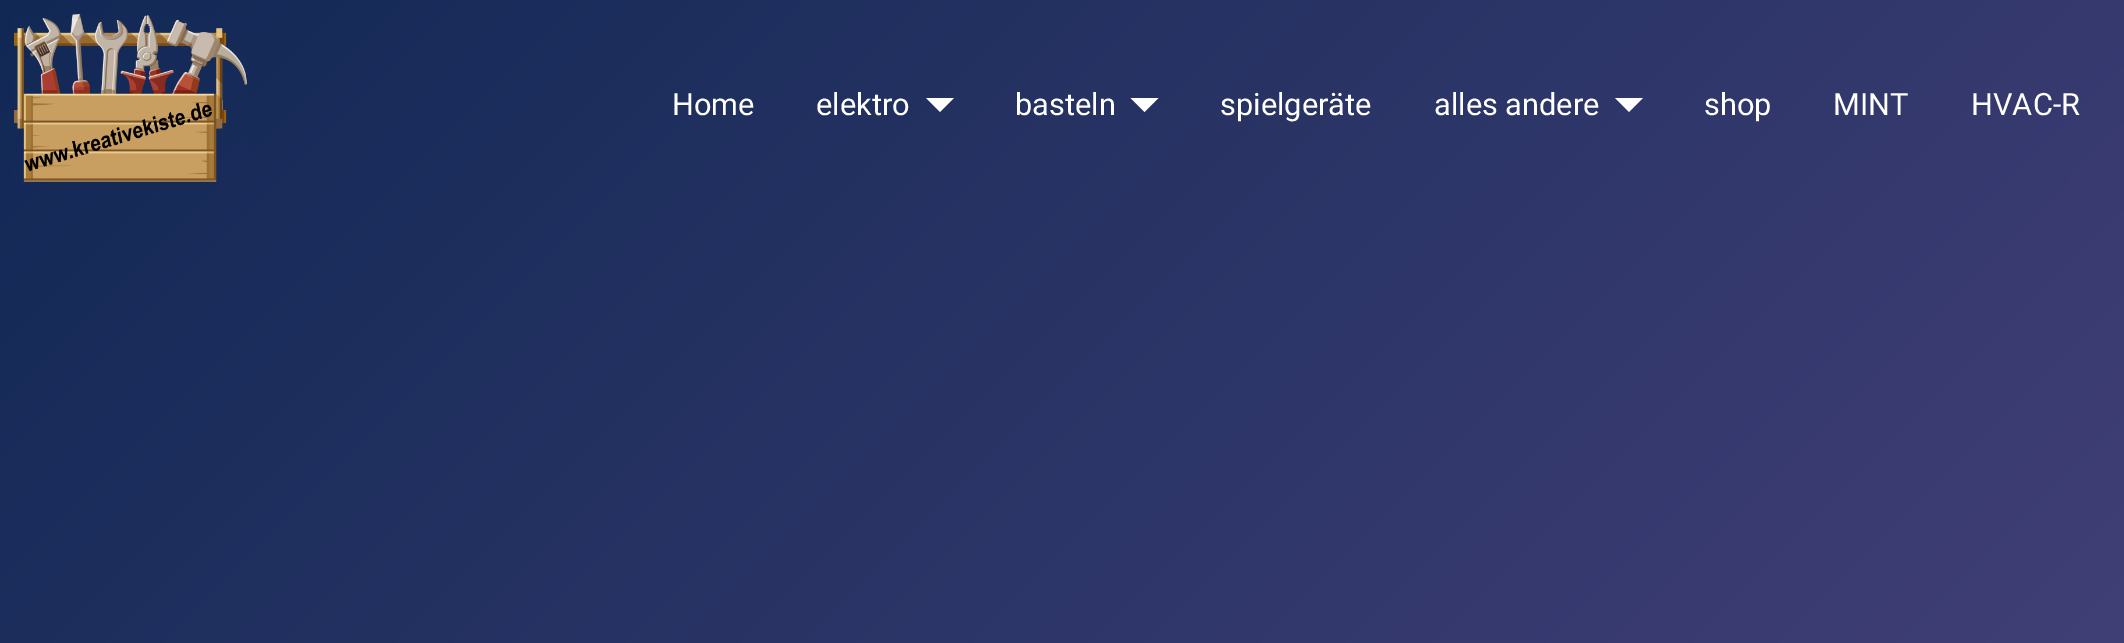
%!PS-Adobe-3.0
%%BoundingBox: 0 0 2124 643
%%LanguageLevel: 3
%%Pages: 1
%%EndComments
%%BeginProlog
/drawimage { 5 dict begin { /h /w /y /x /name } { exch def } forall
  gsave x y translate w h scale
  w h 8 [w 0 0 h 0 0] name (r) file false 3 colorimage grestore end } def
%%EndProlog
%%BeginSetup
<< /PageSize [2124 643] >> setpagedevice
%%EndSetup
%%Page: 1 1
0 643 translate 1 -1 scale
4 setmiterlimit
1 setgray
0 0 2124 643 rectfill
gsave newpath 0 0 moveto 2124 0 lineto 2124 643 lineto 0 643 lineto closepath clip newpath
<< /ShadingType 2 /ColorSpace /DeviceRGB /Coords [347 -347 1777 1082] /Extend [true true] /Function << /FunctionType 2 /Domain [0 1] /C0 [0.067 0.157 0.333] /C1 [0.259 0.251 0.467] /N 1 >> >> shfill grestore
(images/1.raw) 14 14 233 168 drawimage
newpath 926 98 moveto 954 98 lineto 940 112 lineto closepath fill
newpath 1130.5 98 moveto 1158.5 98 lineto 1144.5 112 lineto closepath fill
newpath 1615 98 moveto 1643 98 lineto 1629 112 lineto closepath fill
/Roboto-Regular [30.75 0 0 -30.75 0 0] selectfont
672 115 moveto (Home) show
816 115 moveto (elektro) show
1015 115 moveto (basteln) show
1220 115 moveto (spielgeräte) show
1434 115 moveto (alles andere) show
1704 115 moveto (shop) show
1833 115 moveto (MINT) show
1971 115 moveto (HVAC-R) show
showpage
%%EOF
